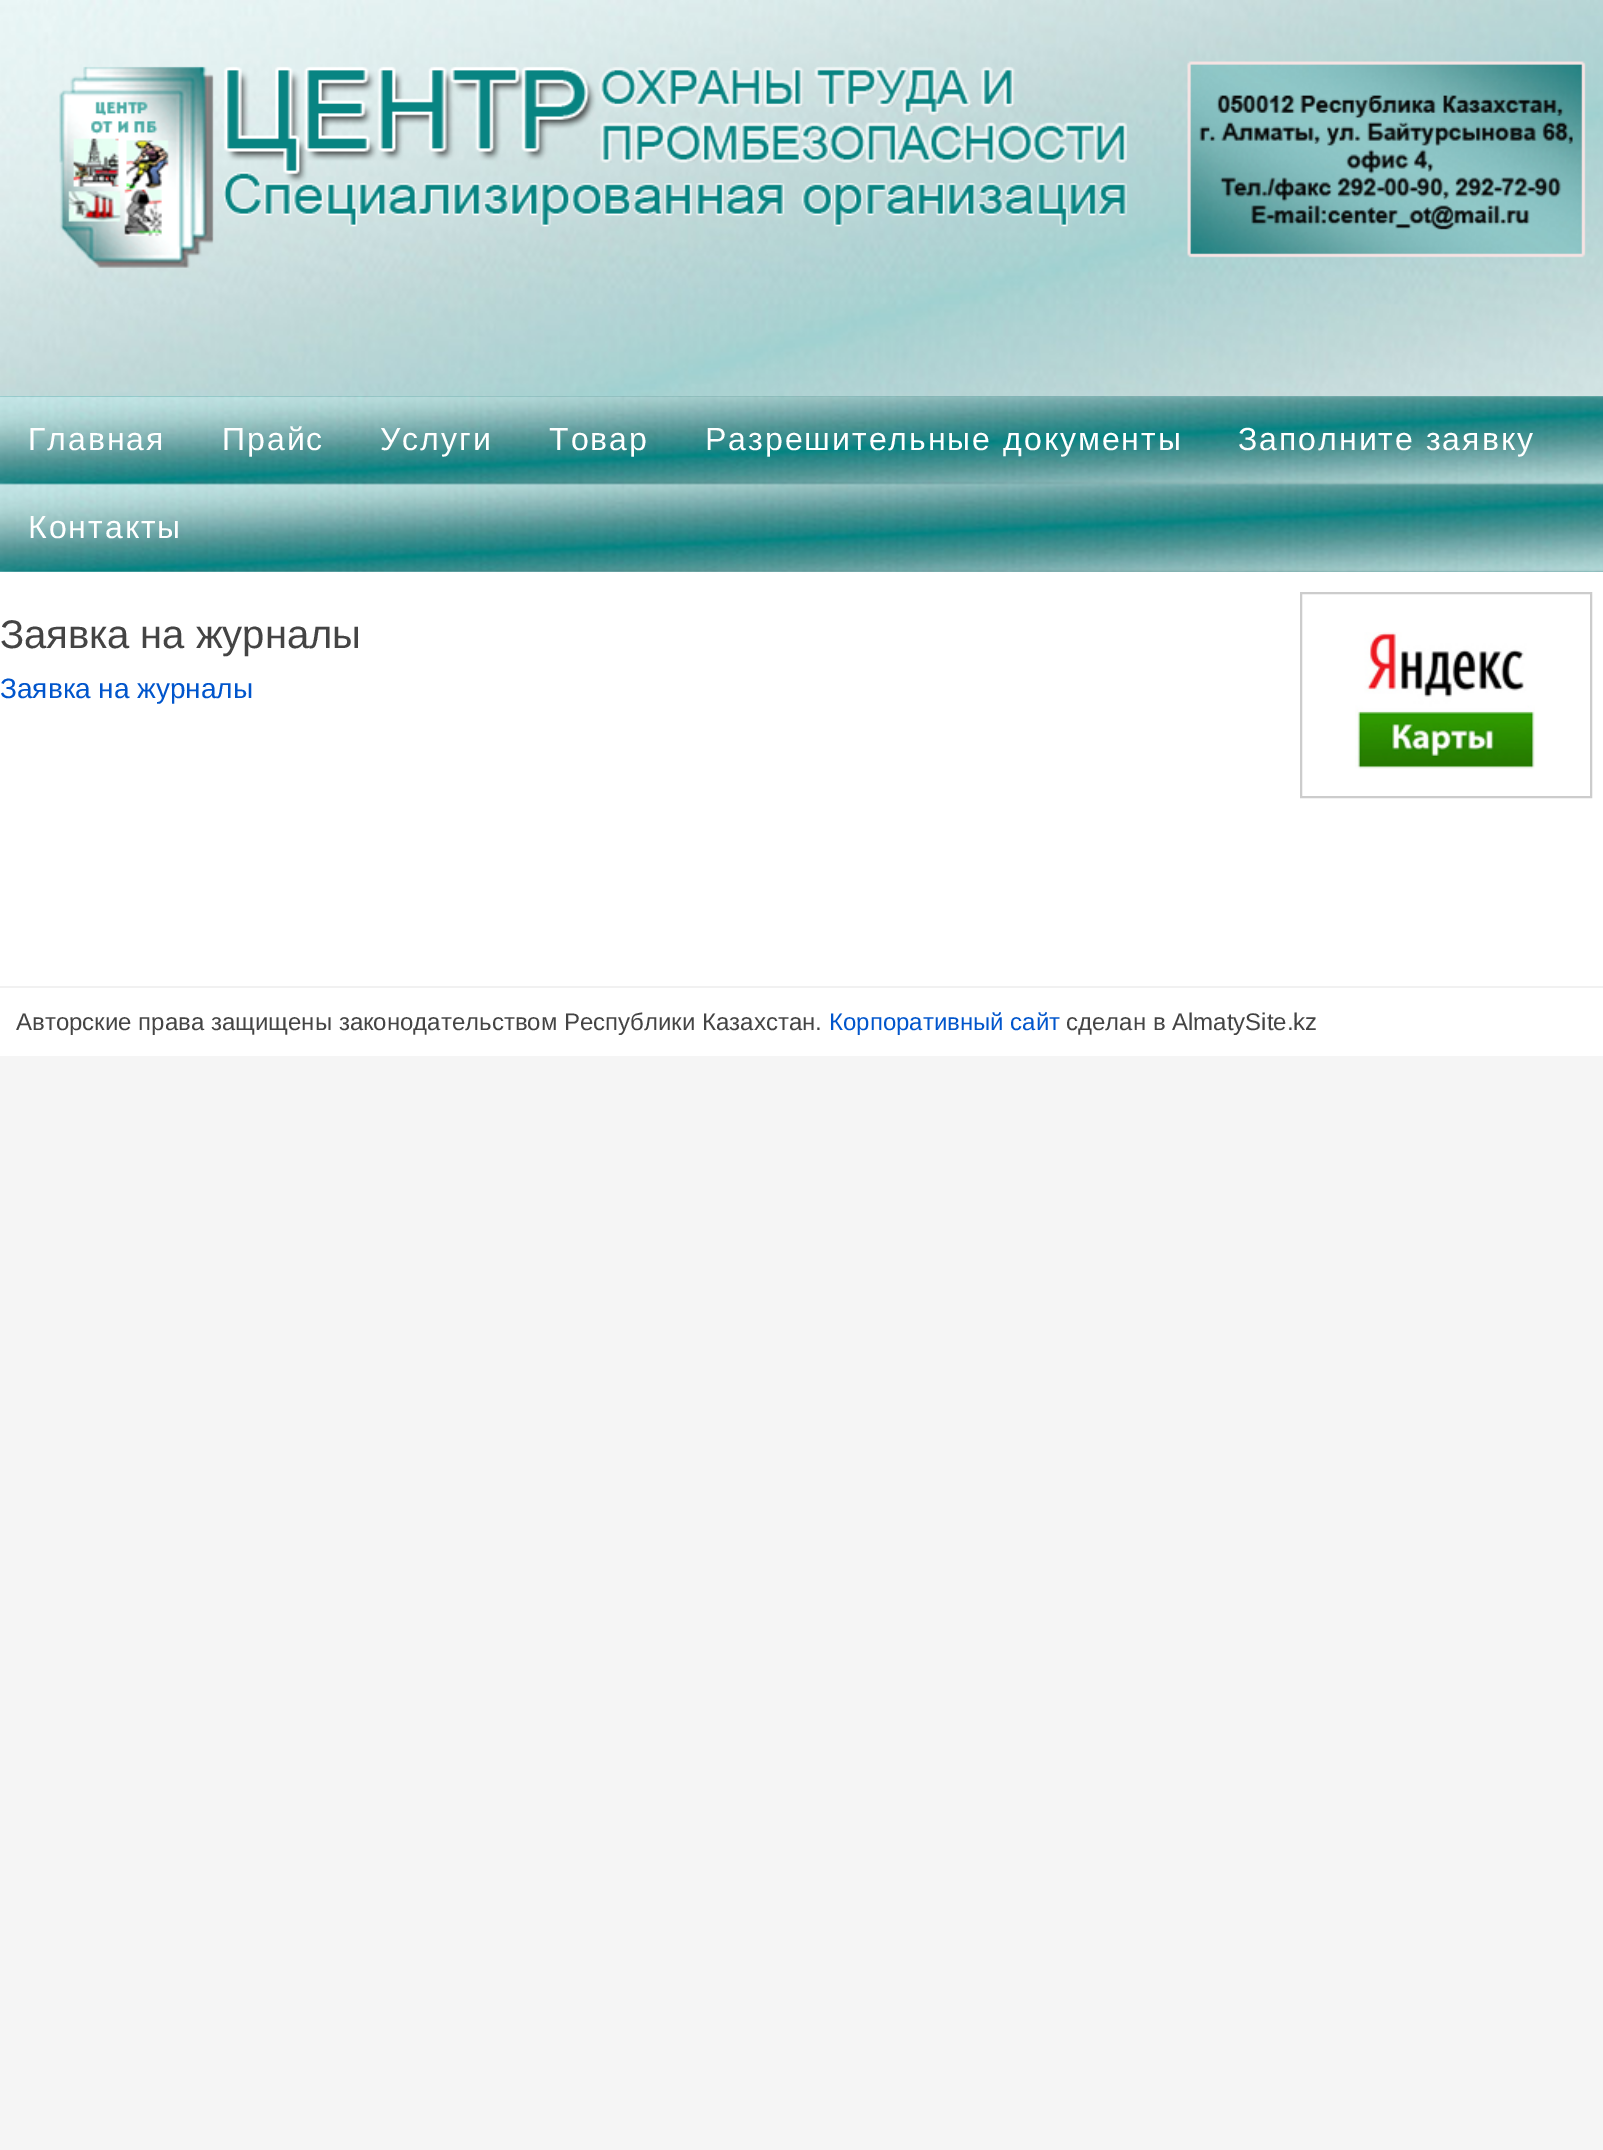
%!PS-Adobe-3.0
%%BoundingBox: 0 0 1603 2150
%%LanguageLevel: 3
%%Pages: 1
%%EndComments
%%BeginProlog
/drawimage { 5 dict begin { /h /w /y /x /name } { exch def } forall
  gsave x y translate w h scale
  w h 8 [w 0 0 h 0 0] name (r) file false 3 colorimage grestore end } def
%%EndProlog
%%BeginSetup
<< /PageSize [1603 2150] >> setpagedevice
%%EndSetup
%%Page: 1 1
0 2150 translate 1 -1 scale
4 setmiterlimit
0.961 setgray
0 0 1603 2150 rectfill
1 setgray
0 572 1603 484 rectfill
(images/1.raw) 0 0 1603 396 drawimage
(images/2.raw) 59 66 1069 202 drawimage
(images/3.raw) 1187 61 399 197 drawimage
(images/4.raw) 0 396 1603 176 drawimage
0.8 setgray
2 setlinewidth
1301 593 290 204 rectstroke
(images/5.raw) 1355 632 180 137 drawimage
0.945 setgray
0 986 1603 2 rectfill
/LiberationSans-Regular [32 0 0 -32 0 0] selectfont
1 setgray
28 450 moveto 2 0 (Главная) ashow
222 450 moveto 2 0 (Прайс) ashow
380 450 moveto 2 0 (Услуги) ashow
549 450 moveto 2 0 (Товар) ashow
705 450 moveto 2 0 (Разрешительные документы) ashow
1238 450 moveto 2 0 (Заполните заявку) ashow
28 538 moveto 2 0 (Контакты) ashow
/LiberationSans-Regular [40 0 0 -40 0 0] selectfont
0.267 setgray
0 648 moveto (Заявка на журналы) show
/LiberationSans-Regular [28 0 0 -28 0 0] selectfont
0 0.333 0.8 setrgbcolor
0 698 moveto (Заявка на журналы) show
/LiberationSans-Regular [24 0 0 -24 0 0] selectfont
0.267 setgray
16 1030 moveto (Авторские права защищены законодательством Республики Казахстан.) show
0 0.333 0.8 setrgbcolor
829 1030 moveto (Корпоративный сайт) show
0.267 setgray
1066 1030 moveto (сделан в AlmatySite.kz) show
showpage
%%EOF
